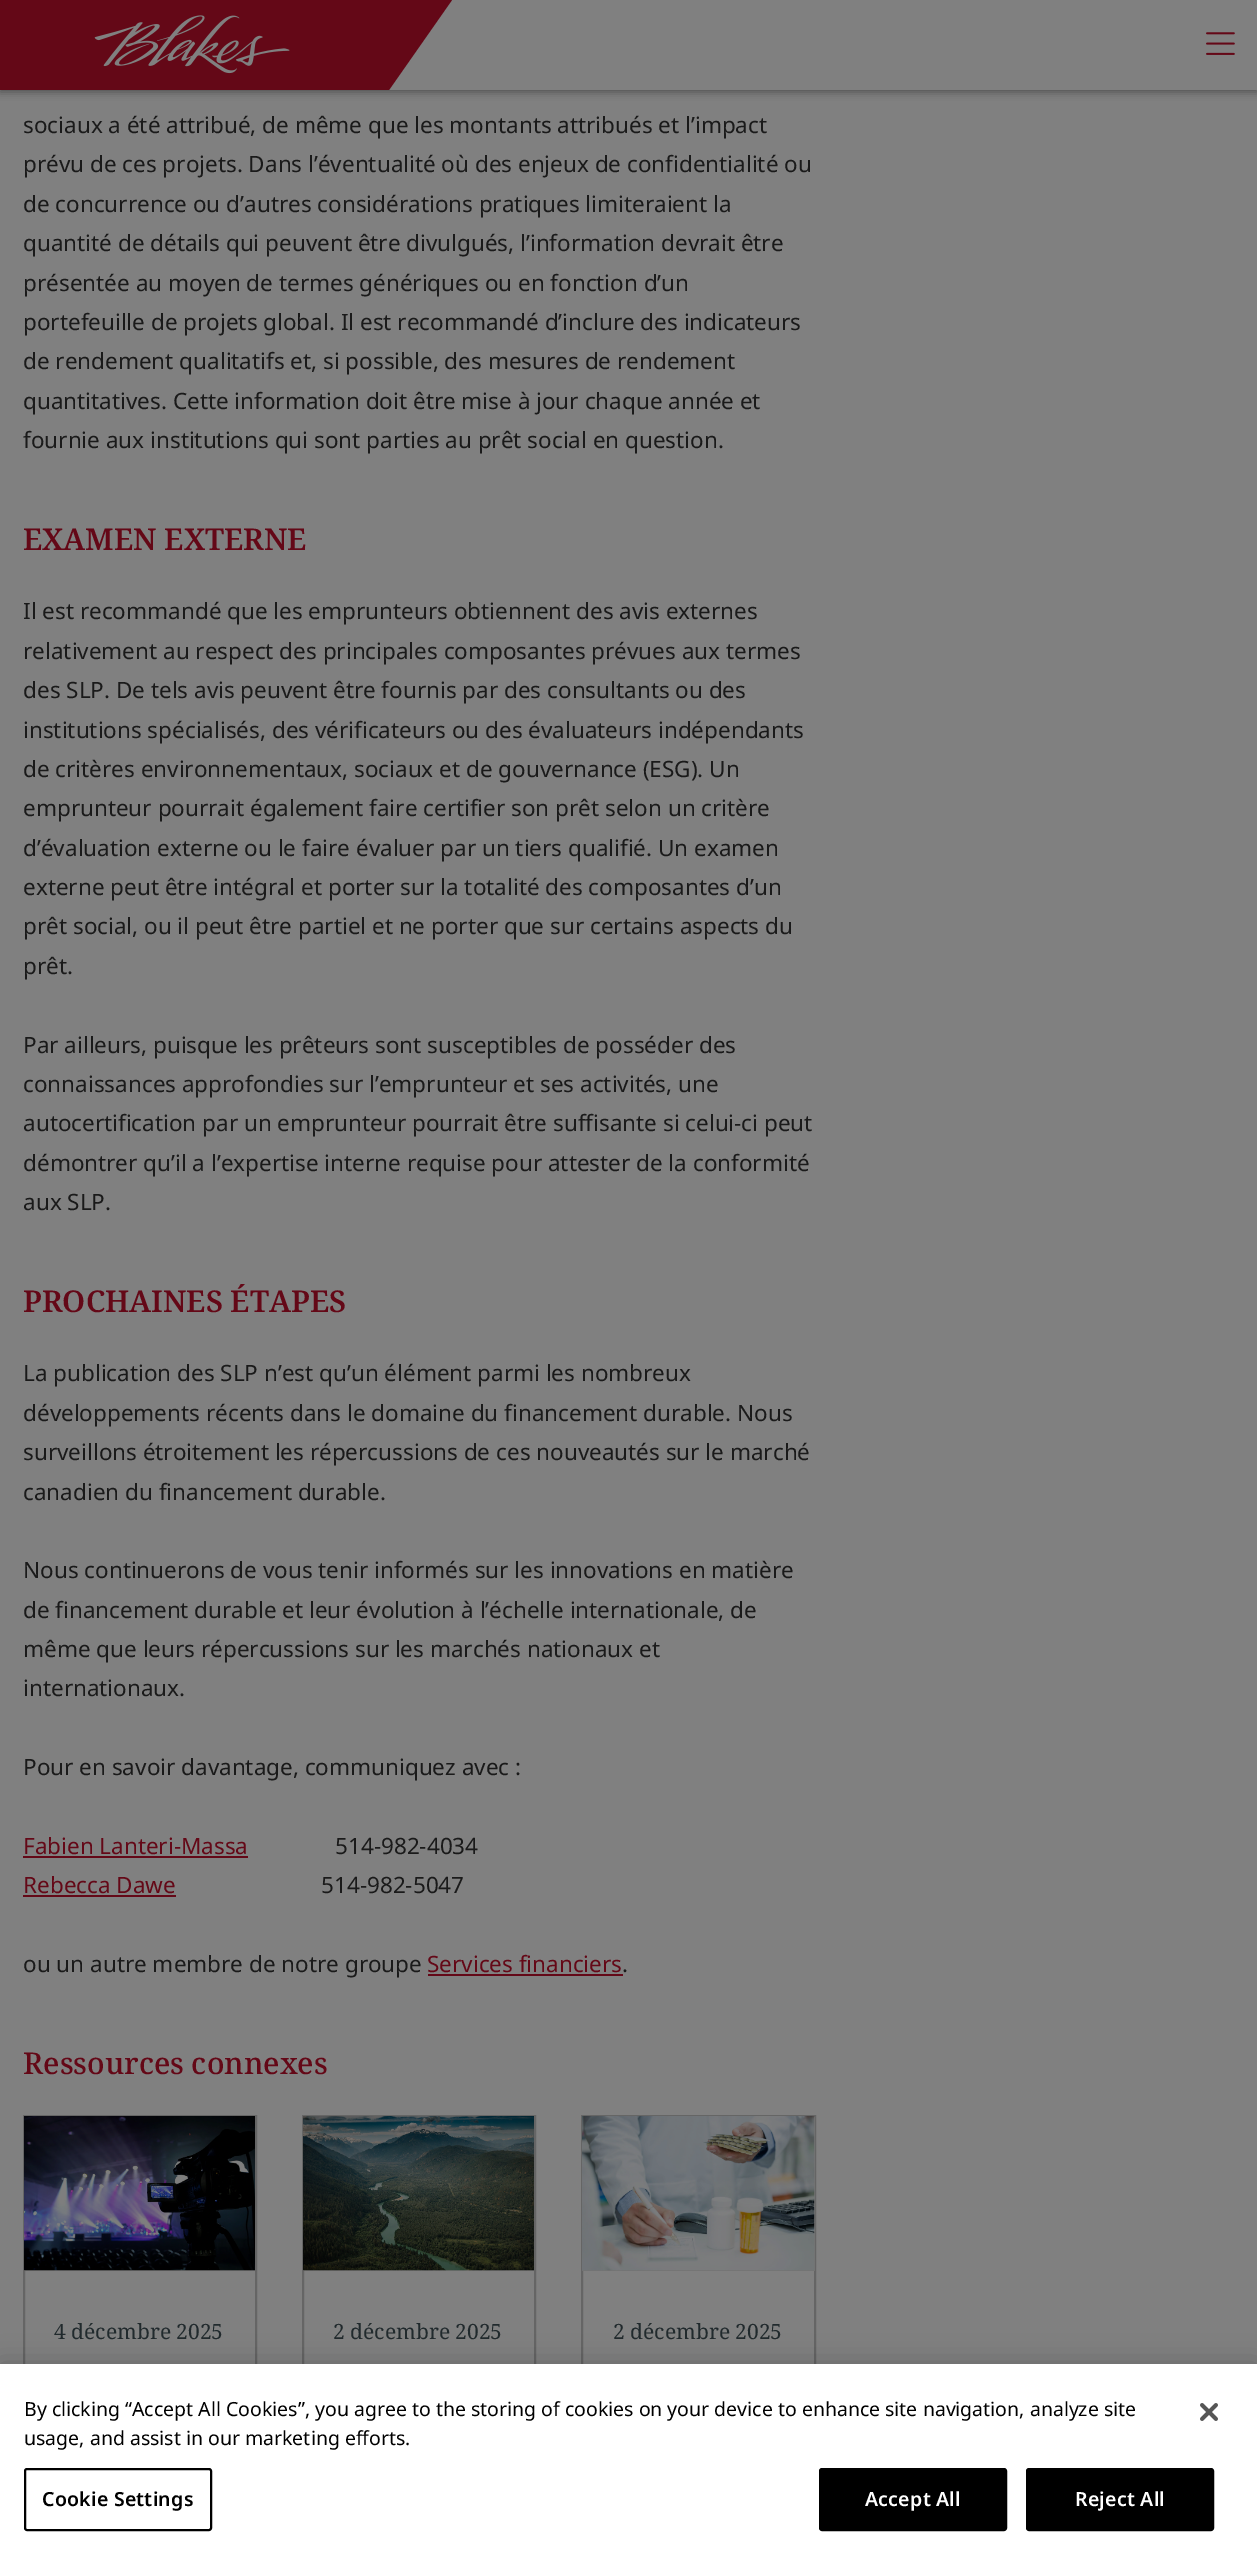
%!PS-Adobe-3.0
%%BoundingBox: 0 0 1257 2562
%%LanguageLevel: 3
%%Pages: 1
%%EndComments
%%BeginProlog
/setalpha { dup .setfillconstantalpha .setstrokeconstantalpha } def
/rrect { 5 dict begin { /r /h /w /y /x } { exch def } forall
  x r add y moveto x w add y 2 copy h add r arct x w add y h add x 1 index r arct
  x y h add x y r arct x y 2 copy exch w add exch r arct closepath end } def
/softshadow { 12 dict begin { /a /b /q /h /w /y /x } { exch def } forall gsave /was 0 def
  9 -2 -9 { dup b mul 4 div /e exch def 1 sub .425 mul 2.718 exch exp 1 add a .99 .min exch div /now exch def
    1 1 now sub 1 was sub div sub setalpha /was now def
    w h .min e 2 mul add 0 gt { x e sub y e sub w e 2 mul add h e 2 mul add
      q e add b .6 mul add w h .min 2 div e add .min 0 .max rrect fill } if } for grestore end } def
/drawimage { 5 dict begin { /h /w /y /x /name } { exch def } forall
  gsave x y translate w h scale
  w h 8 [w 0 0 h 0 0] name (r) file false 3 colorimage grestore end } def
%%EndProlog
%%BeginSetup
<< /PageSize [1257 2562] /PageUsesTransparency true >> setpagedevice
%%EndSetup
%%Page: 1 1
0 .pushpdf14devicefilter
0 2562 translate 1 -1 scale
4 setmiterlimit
0.502 setgray
0 0 1257 2562 rectfill
0 setgray
0 2 1257 90 0 4 0.35 softshadow
0.502 setgray
389 0 868 90 rectfill
0.392 0.031 0.09 setrgbcolor
0 0 376 90 rectfill
(images/1.raw) 94 15 196 59 drawimage
newpath 376 0 moveto 452 0 lineto 389 90 lineto 313 90 lineto closepath fill
(images/2.raw) 1206 32 29 23 drawimage
23 1856 225 2 rectfill
23 1895 153 2 rectfill
428 1974 195 2 rectfill
0.396 setgray
2 setlinewidth
24 2116 232 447 rectstroke
0.451 setgray
24 2270 231 1 rectfill
(images/3.raw) 24 2116 231 155 drawimage
0.396 setgray
303 2116 232 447 rectstroke
0.451 setgray
303 2270 231 1 rectfill
(images/4.raw) 303 2116 231 155 drawimage
0.396 setgray
582 2116 233 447 rectstroke
0.451 setgray
582 2117 233 154 rectfill
(images/5.raw) 582 2116 233 155 drawimage
0 setgray
0 2364 1257 198 0 13.5 0.2 softshadow
1 setgray
0 2364 1257 198 rectfill
0 setgray
25 2469 186 61 2 rrect stroke
820 2469 186 61 2 rrect gsave fill grestore
stroke
1027 2469 186 61 2 rrect gsave fill grestore
stroke
(images/6.raw) 1200 2403 18 18 drawimage
/NotoSans-Regular [22.5 0 0 -22.5 0 0] selectfont
0.102 setgray
23 133 moveto (sociaux a été attribué, de même que les montants attribués et l’impact) show
23 172 moveto (prévu de ces projets. Dans l’éventualité où des enjeux de confidentialité ou) show
23 212 moveto (de concurrence ou d’autres considérations pratiques limiteraient la) show
23 251 moveto (quantité de détails qui peuvent être divulgués, l’information devrait être) show
23 291 moveto (présentée au moyen de termes génériques ou en fonction d’un) show
23 330 moveto (portefeuille de projets global. Il est recommandé d’inclure des indicateurs) show
23 369 moveto (de rendement qualitatifs et, si possible, des mesures de rendement) show
23 409 moveto (quantitatives. Cette information doit être mise à jour chaque année et) show
23 448 moveto (fournie aux institutions qui sont parties au prêt social en question.) show
/NotoSerif-SemiBold [30 0 0 -30 0 0] selectfont
0.392 0.031 0.09 setrgbcolor
23 550 moveto (EXAMEN EXTERNE) show
/NotoSans-Regular [22.5 0 0 -22.5 0 0] selectfont
0.102 setgray
23 619 moveto (Il est recommandé que les emprunteurs obtiennent des avis externes) show
23 659 moveto (relativement au respect des principales composantes prévues aux termes) show
23 698 moveto (des SLP. De tels avis peuvent être fournis par des consultants ou des) show
23 738 moveto (institutions spécialisés, des vérificateurs ou des évaluateurs indépendants) show
23 777 moveto (de critères environnementaux, sociaux et de gouvernance \(ESG\). Un) show
23 816 moveto (emprunteur pourrait également faire certifier son prêt selon un critère) show
23 856 moveto (d’évaluation externe ou le faire évaluer par un tiers qualifié. Un examen) show
23 895 moveto (externe peut être intégral et porter sur la totalité des composantes d’un) show
23 934 moveto (prêt social, ou il peut être partiel et ne porter que sur certains aspects du) show
23 974 moveto (prêt.) show
23 1053 moveto (Par ailleurs, puisque les prêteurs sont susceptibles de posséder des) show
23 1092 moveto (connaissances approfondies sur l’emprunteur et ses activités, une) show
23 1131 moveto (autocertification par un emprunteur pourrait être suffisante si celui-ci peut) show
23 1171 moveto (démontrer qu’il a l’expertise interne requise pour attester de la conformité) show
23 1210 moveto (aux SLP.) show
/NotoSerif-SemiBold [30 0 0 -30 0 0] selectfont
0.392 0.031 0.09 setrgbcolor
23 1312 moveto (PROCHAINES ÉTAPES) show
/NotoSans-Regular [22.5 0 0 -22.5 0 0] selectfont
0.102 setgray
23 1381 moveto (La publication des SLP n’est qu’un élément parmi les nombreux) show
23 1421 moveto (développements récents dans le domaine du financement durable. Nous) show
23 1460 moveto (surveillons étroitement les répercussions de ces nouveautés sur le marché) show
23 1500 moveto (canadien du financement durable.) show
23 1578 moveto (Nous continuerons de vous tenir informés sur les innovations en matière) show
23 1618 moveto (de financement durable et leur évolution à l’échelle internationale, de) show
23 1657 moveto (même que leurs répercussions sur les marchés nationaux et) show
23 1696 moveto (internationaux.) show
23 1775 moveto (Pour en savoir davantage, communiquez avec :) show
0.392 0.031 0.09 setrgbcolor
23 1854 moveto (Fabien Lanteri-Massa) show
0.102 setgray
335 1854 moveto (514-982-4034) show
0.392 0.031 0.09 setrgbcolor
23 1893 moveto (Rebecca Dawe) show
0.102 setgray
321 1893 moveto (514-982-5047) show
23 1972 moveto (ou un autre membre de notre groupe) show
0.392 0.031 0.09 setrgbcolor
427 1972 moveto (Services financiers) show
0.102 setgray
622 1972 moveto (.) show
/NotoSerif-Medium [30 0 0 -30 0 0] selectfont
0.392 0.031 0.09 setrgbcolor
23 2074 moveto (Ressources connexes) show
/NotoSerif-Regular [21 0 0 -21 0 0] selectfont
0.129 0.165 0.176 setrgbcolor
54 2339 moveto (4 décembre 2025) show
333 2339 moveto (2 décembre 2025) show
613 2339 moveto (2 décembre 2025) show
/NotoSans-Regular [19.5 0 0 -19.5 0 0] selectfont
0 setgray
24 2416 moveto (By clicking “Accept All Cookies”, you agree to the storing of cookies on your device to enhance site navigation, analyze site) show
24 2445 moveto (usage, and assist in our marketing efforts.) show
/NotoSans-SemiBold [19.5 0 0 -19.5 0 0] selectfont
42 2506 moveto 0.25 0 (Cookie Settings) ashow
1 setgray
865 2506 moveto 0.25 0 (Accept All) ashow
1075 2506 moveto 0.25 0 (Reject All) ashow
.poppdf14devicefilter showpage
%%EOF
